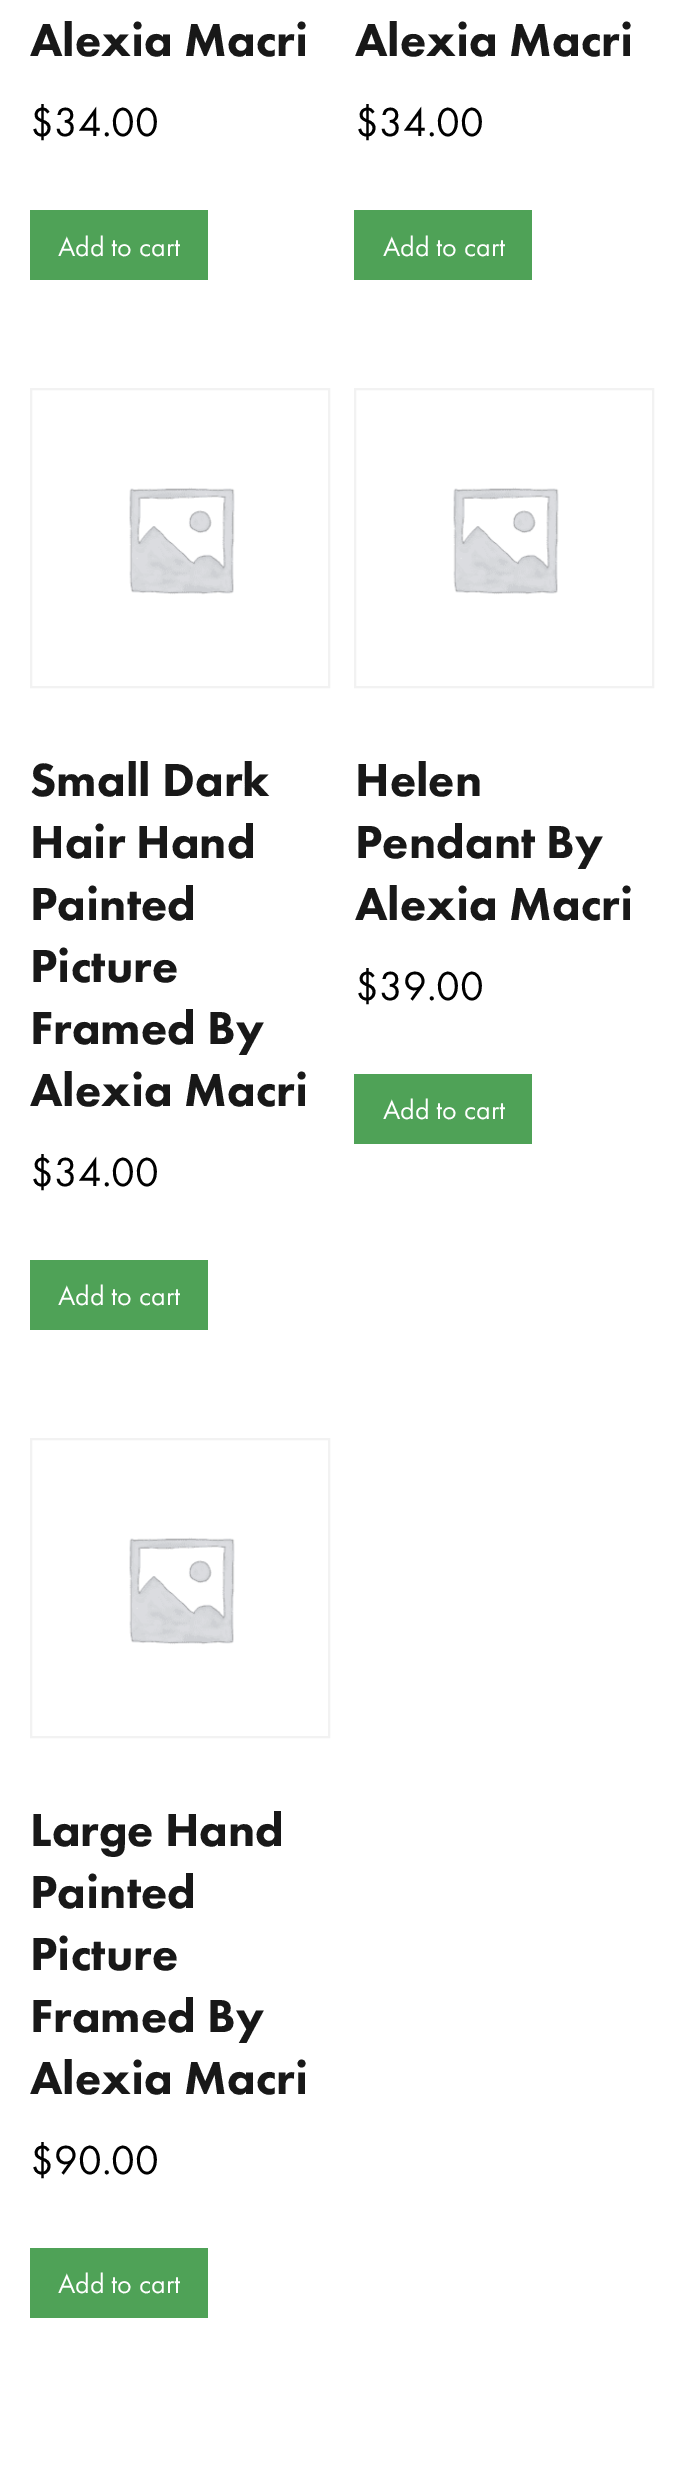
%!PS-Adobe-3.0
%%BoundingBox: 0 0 683 2475
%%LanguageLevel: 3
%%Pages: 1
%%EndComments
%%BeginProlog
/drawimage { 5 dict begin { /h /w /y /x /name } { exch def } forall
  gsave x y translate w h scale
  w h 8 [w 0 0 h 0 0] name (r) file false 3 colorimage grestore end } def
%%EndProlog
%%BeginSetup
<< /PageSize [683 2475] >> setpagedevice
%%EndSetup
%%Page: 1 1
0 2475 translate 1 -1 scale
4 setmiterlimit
1 setgray
0 0 683 2475 rectfill
0.31 0.635 0.341 setrgbcolor
30 210 178 70 rectfill
354 210 178 70 rectfill
0.949 setgray
2 setlinewidth
31 389 298 298 rectstroke
(images/1.raw) 129 487 106 108 drawimage
0.31 0.635 0.341 setrgbcolor
30 1260 178 70 rectfill
0.949 setgray
355 389 298 298 rectstroke
(images/1.raw) 453 487 106 108 drawimage
0.31 0.635 0.341 setrgbcolor
354 1074 178 70 rectfill
0.949 setgray
31 1439 298 298 rectstroke
(images/2.raw) 129 1537 106 108 drawimage
0.31 0.635 0.341 setrgbcolor
30 2248 178 70 rectfill
/FuturaPT-Black [48 0 0 -48 0 0] selectfont
0.094 setgray
30 56 moveto (Alexia Macri) show
/FuturaPT-Regular [42 0 0 -42 0 0] selectfont
0 setgray
30 136 moveto ($34.00) show
/FuturaPT-Regular [28 0 0 -28 0 0] selectfont
1 setgray
58 256 moveto (Add to cart) show
/FuturaPT-Black [48 0 0 -48 0 0] selectfont
0.094 setgray
355 56 moveto (Alexia Macri) show
/FuturaPT-Regular [42 0 0 -42 0 0] selectfont
0 setgray
355 136 moveto ($34.00) show
/FuturaPT-Regular [28 0 0 -28 0 0] selectfont
1 setgray
383 256 moveto (Add to cart) show
/FuturaPT-Black [48 0 0 -48 0 0] selectfont
0.094 setgray
30 796 moveto (Small Dark) show
30 858 moveto (Hair Hand) show
30 920 moveto (Painted) show
30 982 moveto (Picture) show
30 1044 moveto (Framed By) show
30 1106 moveto (Alexia Macri) show
/FuturaPT-Regular [42 0 0 -42 0 0] selectfont
0 setgray
30 1186 moveto ($34.00) show
/FuturaPT-Regular [28 0 0 -28 0 0] selectfont
1 setgray
58 1305 moveto (Add to cart) show
/FuturaPT-Black [48 0 0 -48 0 0] selectfont
0.094 setgray
355 796 moveto (Helen) show
355 858 moveto (Pendant By) show
355 920 moveto (Alexia Macri) show
/FuturaPT-Regular [42 0 0 -42 0 0] selectfont
0 setgray
355 1000 moveto ($39.00) show
/FuturaPT-Regular [28 0 0 -28 0 0] selectfont
1 setgray
383 1119 moveto (Add to cart) show
/FuturaPT-Black [48 0 0 -48 0 0] selectfont
0.094 setgray
30 1846 moveto (Large Hand) show
30 1908 moveto (Painted) show
30 1970 moveto (Picture) show
30 2032 moveto (Framed By) show
30 2094 moveto (Alexia Macri) show
/FuturaPT-Regular [42 0 0 -42 0 0] selectfont
0 setgray
30 2174 moveto ($90.00) show
/FuturaPT-Regular [28 0 0 -28 0 0] selectfont
1 setgray
58 2293 moveto (Add to cart) show
showpage
%%EOF
